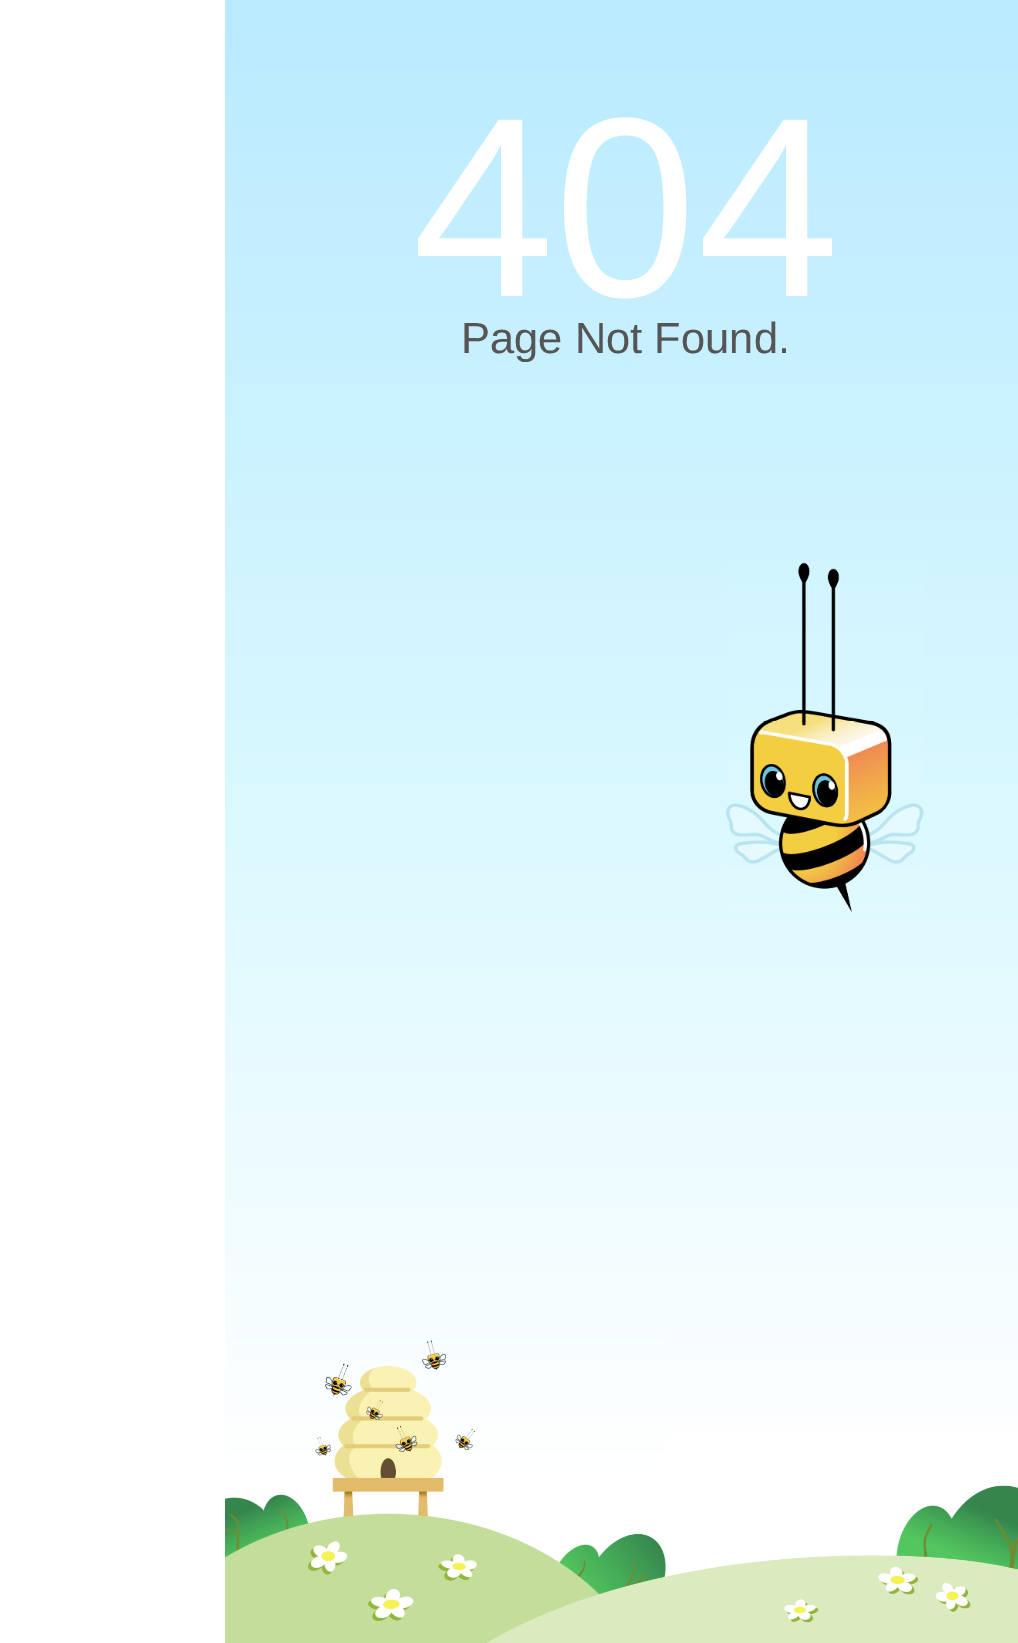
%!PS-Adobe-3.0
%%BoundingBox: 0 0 1018 1643
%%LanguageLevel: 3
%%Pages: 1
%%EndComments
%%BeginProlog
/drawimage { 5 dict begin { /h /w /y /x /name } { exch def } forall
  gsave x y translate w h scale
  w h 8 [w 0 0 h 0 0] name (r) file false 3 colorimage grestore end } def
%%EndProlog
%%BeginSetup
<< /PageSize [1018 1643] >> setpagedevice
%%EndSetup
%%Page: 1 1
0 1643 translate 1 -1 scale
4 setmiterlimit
1 setgray
0 0 1018 1643 rectfill
gsave newpath 225 0 moveto 1018 0 lineto 1018 1434 lineto 225 1434 lineto closepath clip newpath
<< /ShadingType 2 /ColorSpace /DeviceRGB /Coords [622 0 622 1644] /Extend [true true] /Function << /FunctionType 3 /Domain [0 1] /Functions [<< /FunctionType 2 /Domain [0 1] /C0 [0.729 0.918 1] /C1 [0.859 0.976 1] /N 1 >> << /FunctionType 2 /Domain [0 1] /C0 [0.859 0.976 1] /C1 [1 1 1] /N 1 >> << /FunctionType 2 /Domain [0 1] /C0 [1 1 1] /C1 [1 1 1] /N 1 >>] /Bounds [0.5 0.9] /Encode [0 1 0 1 0 1] >> >> shfill grestore
(images/1.raw) 726 562 198 350 drawimage
(images/2.raw) 225 1340 441 303 drawimage
(images/3.raw) 487 1485 531 158 drawimage
/Arimo-Regular [256 0 0 -256 0 0] selectfont
412 296 moveto (404) show
/Arimo-Regular [43.5 0 0 -43.5 0 0] selectfont
0.333 setgray
461 353 moveto (Page Not Found.) show
showpage
%%EOF
